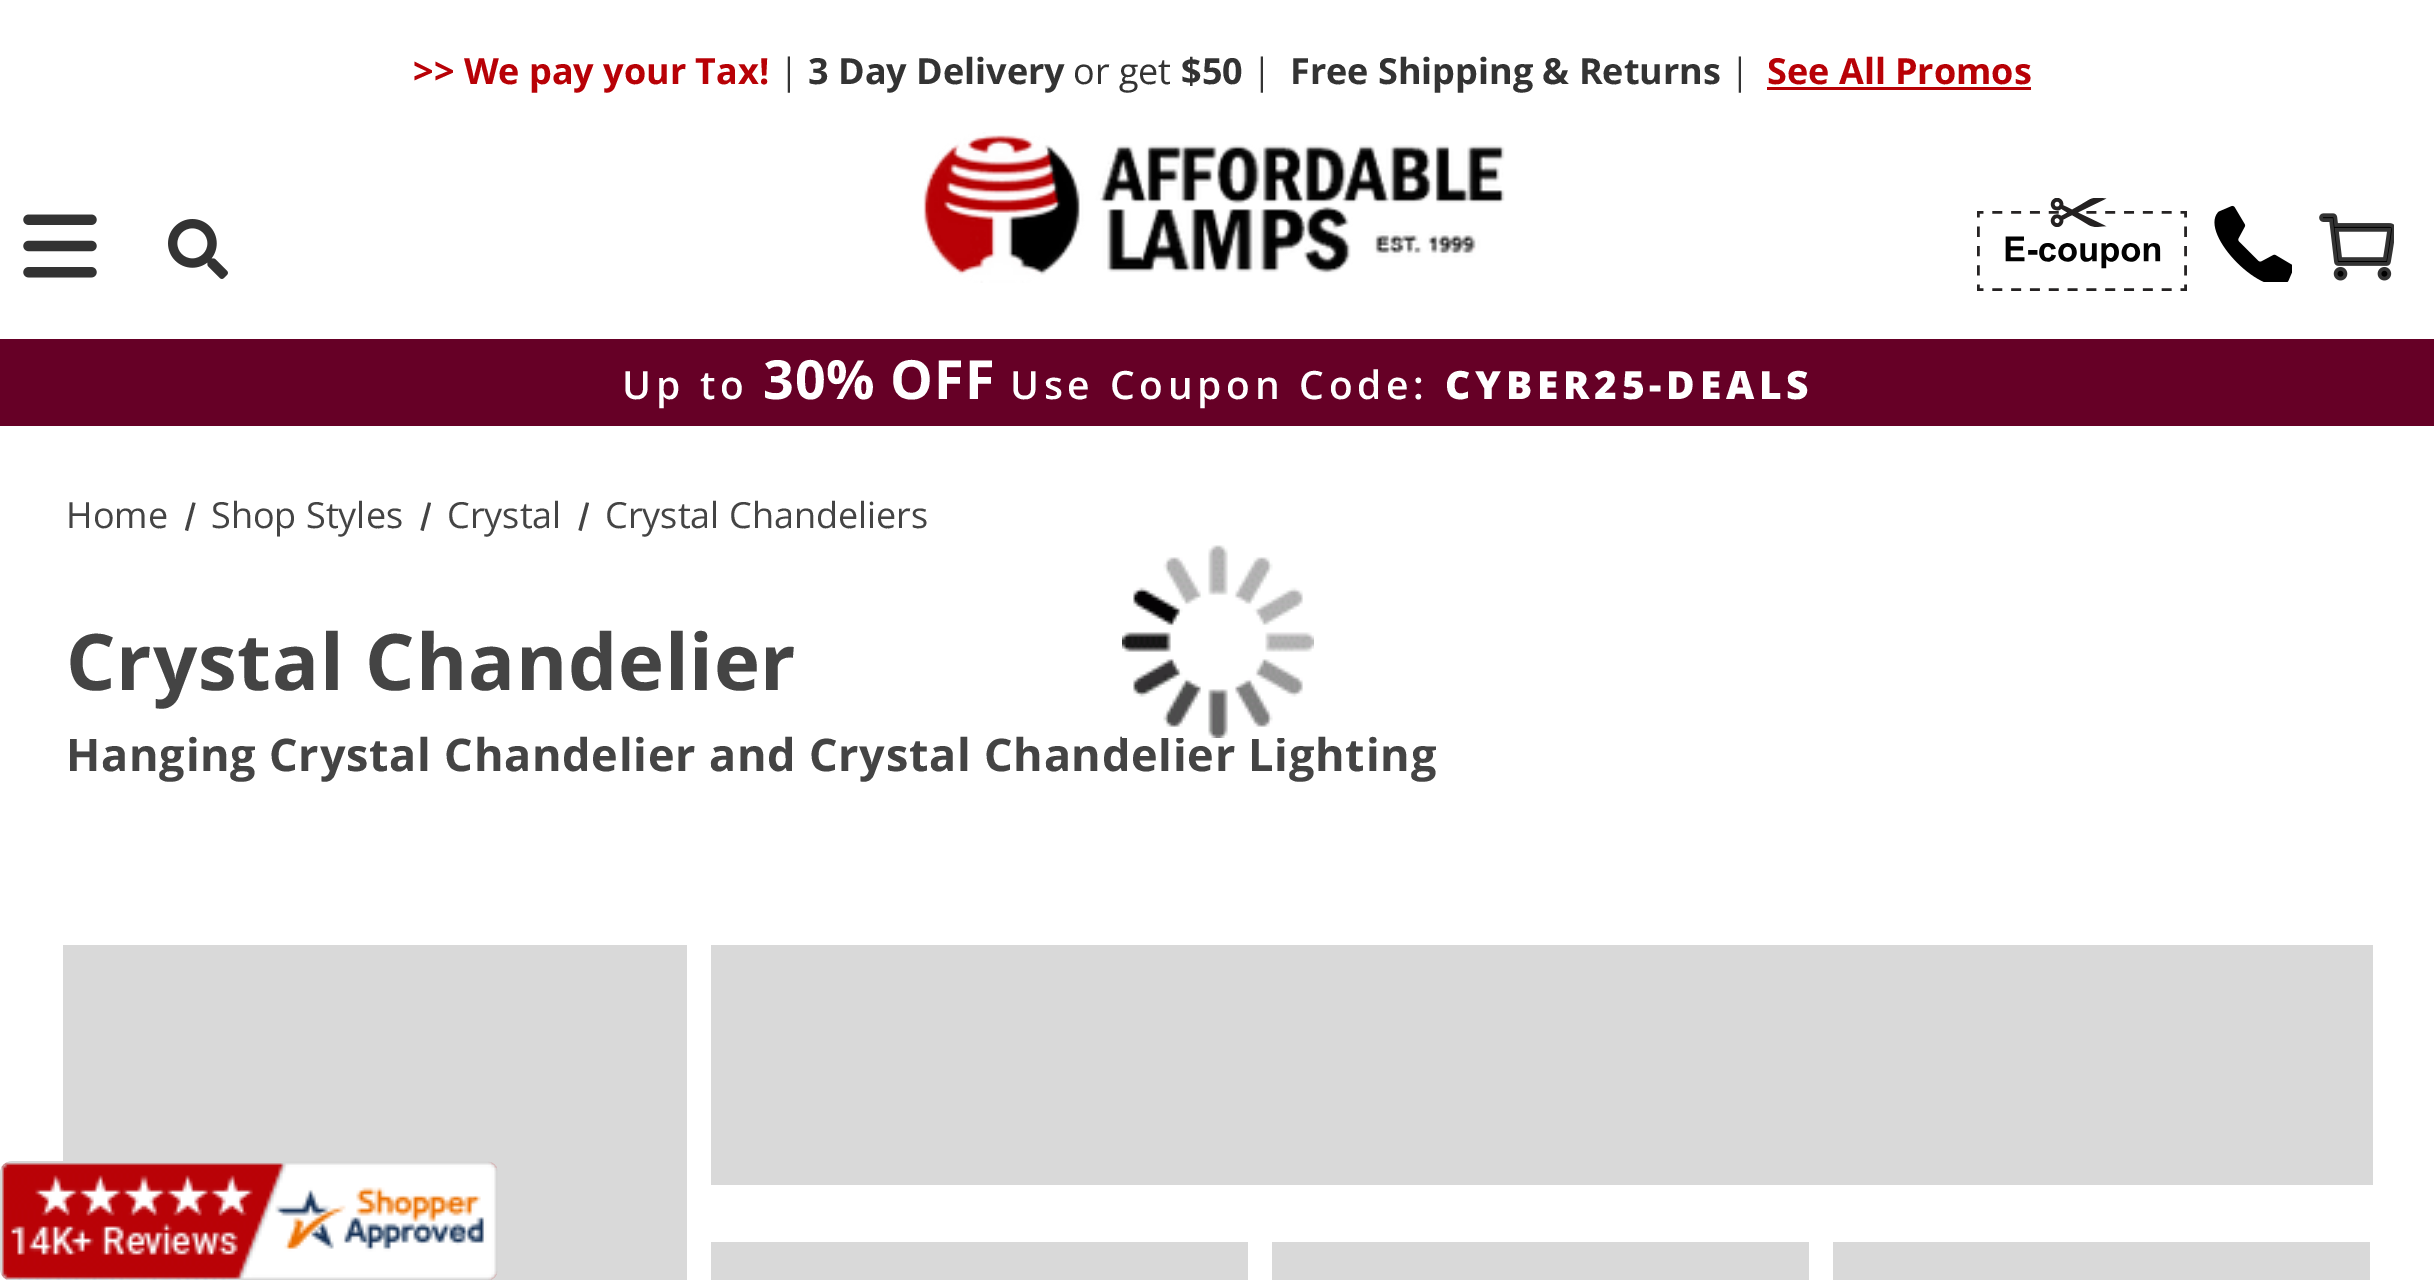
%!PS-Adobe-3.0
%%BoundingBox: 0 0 2434 1280
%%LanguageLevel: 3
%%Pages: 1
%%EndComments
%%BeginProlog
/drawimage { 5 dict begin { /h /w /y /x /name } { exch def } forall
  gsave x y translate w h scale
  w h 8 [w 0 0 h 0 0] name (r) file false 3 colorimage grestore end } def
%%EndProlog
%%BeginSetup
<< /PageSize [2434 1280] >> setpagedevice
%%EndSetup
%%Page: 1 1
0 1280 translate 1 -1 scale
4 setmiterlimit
1 setgray
0 0 2434 1280 rectfill
0.722 0.004 0.024 setrgbcolor
1767 87 264 3 rectfill
(images/1.raw) 23 214 74 64 drawimage
(images/2.raw) 168 219 60 60 drawimage
(images/3.raw) 923 132 582 151 drawimage
(images/4.raw) 1977 198 210 93 drawimage
(images/5.raw) 2214 205 78 77 drawimage
(images/6.raw) 2319 213 75 68 drawimage
0.4 0 0.149 setrgbcolor
0 339 2434 87 rectfill
0.267 setgray
newpath 192.5 502.5 moveto 195.5 503 lineto 188 531 lineto 185 530 lineto closepath fill
newpath 428 502.5 moveto 431 503 lineto 423.5 531 lineto 420.5 530 lineto closepath fill
newpath 586 502.5 moveto 589 503 lineto 581.5 531 lineto 578.5 530 lineto closepath fill
0.851 setgray
63 945 624 335 rectfill
711 945 1662 240 rectfill
711 1242 537 38 rectfill
1272 1242 537 38 rectfill
1833 1242 537 38 rectfill
(images/8.raw) 0 1161 498 119 drawimage
/OpenSans-Bold [36 0 0 -36 0 0] selectfont
0.722 0.004 0.024 setrgbcolor
413 84 moveto (>> We pay your Tax!) show
/OpenSans-Regular [36 0 0 -36 0 0] selectfont
0.2 setgray
779 84 moveto (|) show
/OpenSans-Bold [36 0 0 -36 0 0] selectfont
808 84 moveto (3 Day Delivery) show
/OpenSans-Regular [36 0 0 -36 0 0] selectfont
1073 84 moveto (or get) show
/OpenSans-Bold [36 0 0 -36 0 0] selectfont
1181 84 moveto ($50) show
/OpenSans-Regular [36 0 0 -36 0 0] selectfont
1252 84 moveto (|) show
/OpenSans-Bold [36 0 0 -36 0 0] selectfont
1290 84 moveto (Free Shipping & Returns) show
/OpenSans-Regular [36 0 0 -36 0 0] selectfont
1730 84 moveto (|) show
/OpenSans-Bold [36 0 0 -36 0 0] selectfont
0.722 0.004 0.024 setrgbcolor
1767 84 moveto (See All Promos) show
/OpenSans-SemiBold [39 0 0 -39 0 0] selectfont
1 setgray
622 399 moveto 4.75 0 (Up to) ashow
/OpenSans-Bold [54 0 0 -54 0 0] selectfont
763 399 moveto 0.75 0 (30% OFF) ashow
/OpenSans-SemiBold [39 0 0 -39 0 0] selectfont
1010 399 moveto 4.75 0 (Use Coupon Code:) ashow
/OpenSans-ExtraBold [39 0 0 -39 0 0] selectfont
1445 399 moveto 4.75 0 (CYBER25-DEALS) ashow
/OpenSans-Regular [36 0 0 -36 0 0] selectfont
0.267 setgray
66 528 moveto (Home) show
211 528 moveto (Shop Styles) show
447 528 moveto (Crystal) show
605 528 moveto (Crystal Chandeliers) show
/OpenSans-Bold [78 0 0 -78 0 0] selectfont
66 690 moveto 0.75 0 (Crystal Chandelier) ashow
/OpenSans-Bold [45 0 0 -45 0 0] selectfont
66 771 moveto 0.75 0 (Hanging Crystal Chandelier and Crystal Chandelier Lighting) ashow
(images/7.raw) 1122 545 192 193 drawimage
showpage
%%EOF
